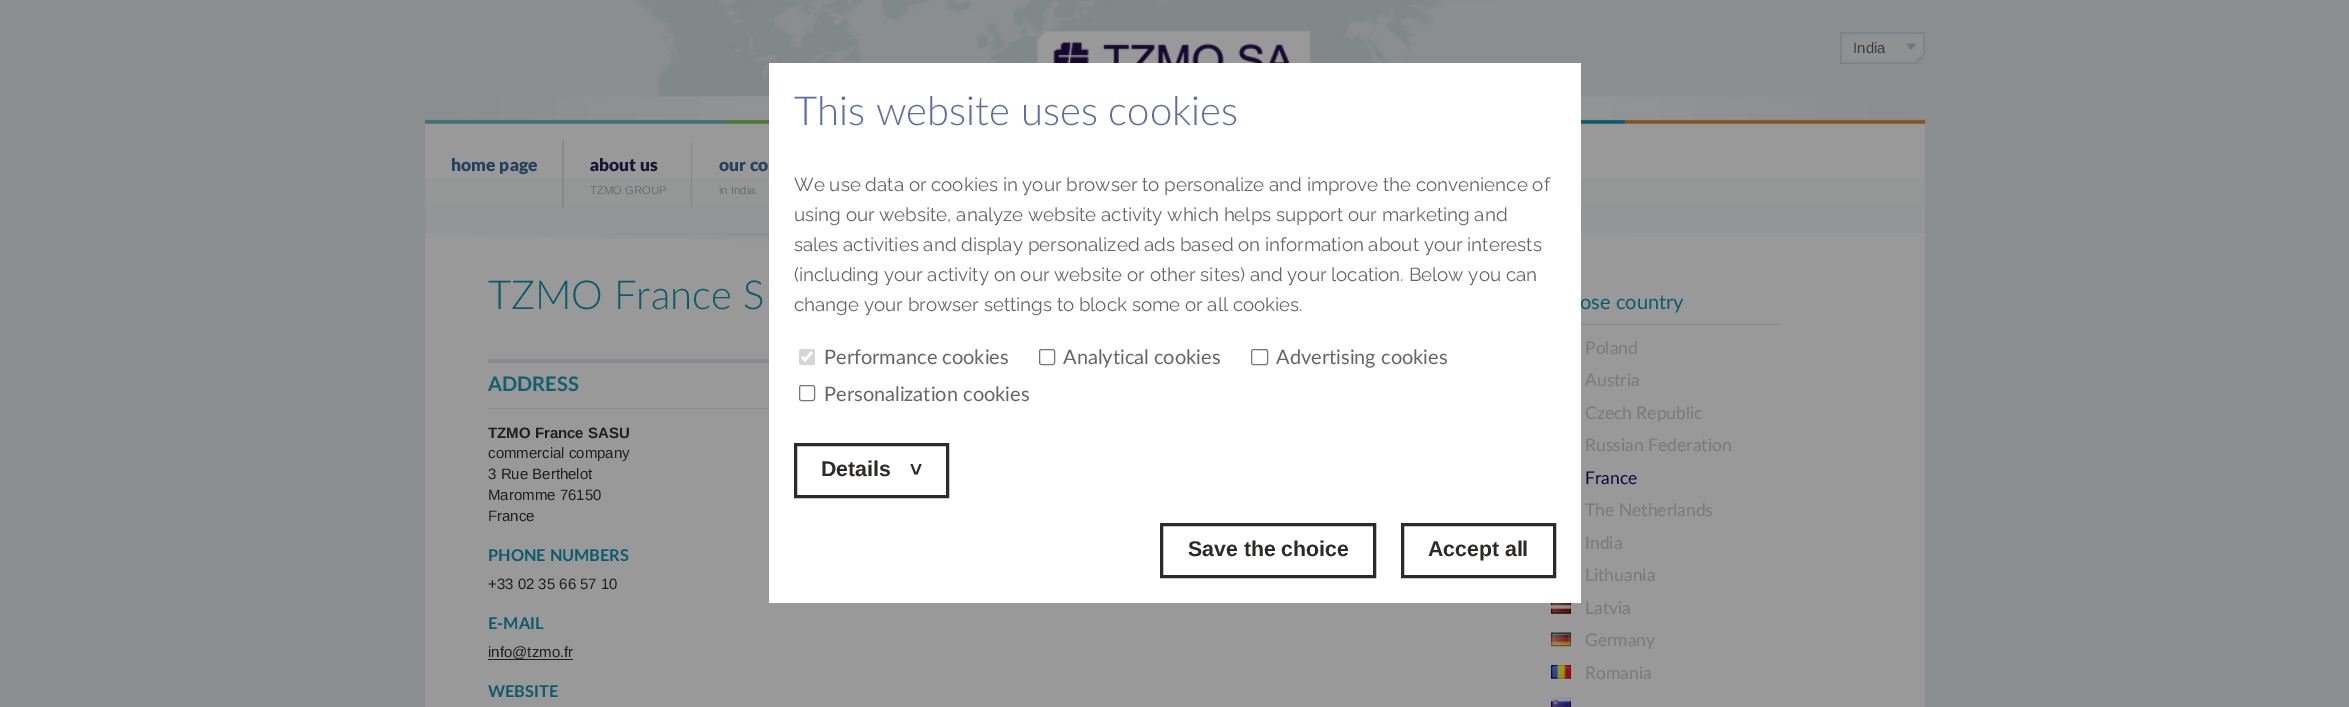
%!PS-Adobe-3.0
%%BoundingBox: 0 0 2349 707
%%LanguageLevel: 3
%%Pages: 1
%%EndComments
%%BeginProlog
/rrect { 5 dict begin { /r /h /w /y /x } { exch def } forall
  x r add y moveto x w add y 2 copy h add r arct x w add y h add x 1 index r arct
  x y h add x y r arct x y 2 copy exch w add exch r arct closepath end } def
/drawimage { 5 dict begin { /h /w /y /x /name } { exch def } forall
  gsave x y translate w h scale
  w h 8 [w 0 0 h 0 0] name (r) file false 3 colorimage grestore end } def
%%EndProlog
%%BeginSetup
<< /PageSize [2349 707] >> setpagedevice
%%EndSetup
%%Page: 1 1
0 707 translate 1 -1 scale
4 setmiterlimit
0.541 0.557 0.561 setrgbcolor
0 0 2349 707 rectfill
0.6 setgray
425 123 1500 584 rectfill
(images/1.raw) 425 0 1500 124 drawimage
(images/2.raw) 1035 30 276 33 drawimage
(images/3.raw) 1840 32 85 32 drawimage
(images/4.raw) 1840 32 14 32 drawimage
(images/5.raw) 1914 32 11 32 drawimage
(images/6.raw) 1906 43 11 7 drawimage
gsave newpath 425 179 moveto 1925 179 lineto 1925 233 lineto 425 233 lineto closepath clip newpath
<< /ShadingType 2 /ColorSpace /DeviceRGB /Coords [1175 124 1175 233] /Extend [true true] /Function << /FunctionType 2 /Domain [0 1] /C0 [0.6 0.6 0.6] /C1 [0.58 0.584 0.588] /N 1 >> >> shfill grestore
0.518 0.541 0.549 setrgbcolor
newpath 564 141 moveto 564 208 lineto 562 206 lineto 562 142 lineto closepath fill
newpath 692 141 moveto 692 208 lineto 691 206 lineto 691 142 lineto closepath fill
(images/7.raw) 431 233 1198 9 drawimage
0.525 0.545 0.553 setrgbcolor
488 359 281 4 rectfill
488 408 281 1 rectfill
0.122 setgray
488 659 85 1 rectfill
0.525 0.545 0.553 setrgbcolor
1581 324 200 1 rectfill
(images/8.raw) 1551 603 20 11 drawimage
(images/9.raw) 1551 632 20 15 drawimage
(images/10.raw) 1551 665 20 14 drawimage
(images/11.raw) 1551 697 20 10 drawimage
/LiberationSans-Regular [15 0 0 -15 0 0] selectfont
0.239 setgray
1853 53 moveto (India) show
/Lato-Black [17.5 0 0 -17.5 0 0] selectfont
0.137 0.255 0.373 setrgbcolor
451 171 moveto (home page) show
0.09 0.078 0.204 setrgbcolor
590 171 moveto (about us) show
/LiberationSans-Regular [11.25 0 0 -11.25 0 0] selectfont
0.404 0.427 0.451 setrgbcolor
590 194 moveto (TZMO GROUP) show
/Lato-Black [17.5 0 0 -17.5 0 0] selectfont
0.137 0.255 0.373 setrgbcolor
719 171 moveto (our co) show
/LiberationSans-Regular [11.25 0 0 -11.25 0 0] selectfont
0.404 0.427 0.451 setrgbcolor
719 194 moveto (in India) show
/Lato-Light [40 0 0 -40 0 0] selectfont
0.043 0.357 0.427 setrgbcolor
488 309 moveto (TZMO France S) show
/Lato-Bold [20 0 0 -20 0 0] selectfont
0.075 0.373 0.435 setrgbcolor
488 391 moveto (ADDRESS) show
/LiberationSans-Bold [15 0 0 -15 0 0] selectfont
0.122 setgray
488 438 moveto (TZMO France SASU) show
/LiberationSans-Regular [15 0 0 -15 0 0] selectfont
488 458 moveto (commercial company) show
488 479 moveto (3 Rue Berthelot) show
488 500 moveto (Maromme 76150) show
488 521 moveto (France) show
/Lato-Bold [16.25 0 0 -16.25 0 0] selectfont
0.043 0.357 0.427 setrgbcolor
488 561 moveto (PHONE NUMBERS) show
/LiberationSans-Regular [15 0 0 -15 0 0] selectfont
0.122 setgray
488 589 moveto (+33 02 35 66 57 10) show
/Lato-Bold [16.25 0 0 -16.25 0 0] selectfont
0.043 0.357 0.427 setrgbcolor
488 629 moveto (E-MAIL) show
/LiberationSans-Regular [15 0 0 -15 0 0] selectfont
0.122 setgray
488 657 moveto (info@tzmo.fr) show
/Lato-Bold [16.25 0 0 -16.25 0 0] selectfont
0.043 0.357 0.427 setrgbcolor
488 697 moveto (WEBSITE) show
/Lato-Regular [20 0 0 -20 0 0] selectfont
1580 309 moveto (ose country) show
/Lato-Regular [17.5 0 0 -17.5 0 0] selectfont
0.478 setgray
1585 354 moveto (Poland) show
1585 386 moveto (Austria) show
1585 419 moveto (Czech Republic) show
1585 451 moveto (Russian Federation) show
0.059 0.043 0.235 setrgbcolor
1585 484 moveto (France) show
0.478 setgray
1585 516 moveto (The Netherlands) show
1585 549 moveto (India) show
1585 581 moveto (Lithuania) show
1585 614 moveto (Latvia) show
1585 646 moveto (Germany) show
1585 679 moveto (Romania) show
1 setgray
769 63 812 540 rectfill
/Lato-Light [40 0 0 -40 0 0] selectfont
0.361 0.431 0.639 setrgbcolor
794 125 moveto (This website uses cookies) show
/Raleway-Regular [18.75 0 0 -18.75 0 0] selectfont
0.4 setgray
794 191 moveto (We use data or cookies in your browser to personalize and improve the convenience of) show
794 221 moveto (using our website, analyze website activity which helps support our marketing and) show
794 251 moveto (sales activities and display personalized ads based on information about your interests) show
794 281 moveto (\(including your activity on our website or other sites\) and your location. Below you can) show
794 311 moveto (change your browser settings to block some or all cookies.) show
0.839 setgray
799 349 16 16 2.5 rrect fill
1 setgray
2.6 setlinewidth
newpath 802 357 moveto 805 360 lineto 812 352 lineto stroke
/Lato-Regular [20 0 0 -20 0 0] selectfont
0.4 setgray
824 364 moveto (Performance cookies) show
0.463 setgray
1 setlinewidth
1039.5 349.5 15 15 2 rrect stroke
0.4 setgray
1063 364 moveto (Analytical cookies) show
0.463 setgray
1251.5 349.5 16 15 2 rrect stroke
0.4 setgray
1276 364 moveto (Advertising cookies) show
0.463 setgray
799.5 385.5 15 15 2 rrect stroke
0.4 setgray
824 401 moveto (Personalization cookies) show
0.173 0.169 0.161 setrgbcolor
3 setlinewidth
795.5 444.5 152 52 rectstroke
/LiberationSans-Bold [21.25 0 0 -21.25 0 0] selectfont
821 476 moveto (Details) show
gsave 909 463 translate 90 rotate 0 0 moveto (>) show grestore
1161.5 524.5 213 52 rectstroke
1188 556 moveto (Save the choice) show
1402.5 524.5 152 52 rectstroke
1428 556 moveto (Accept all) show
showpage
%%EOF
